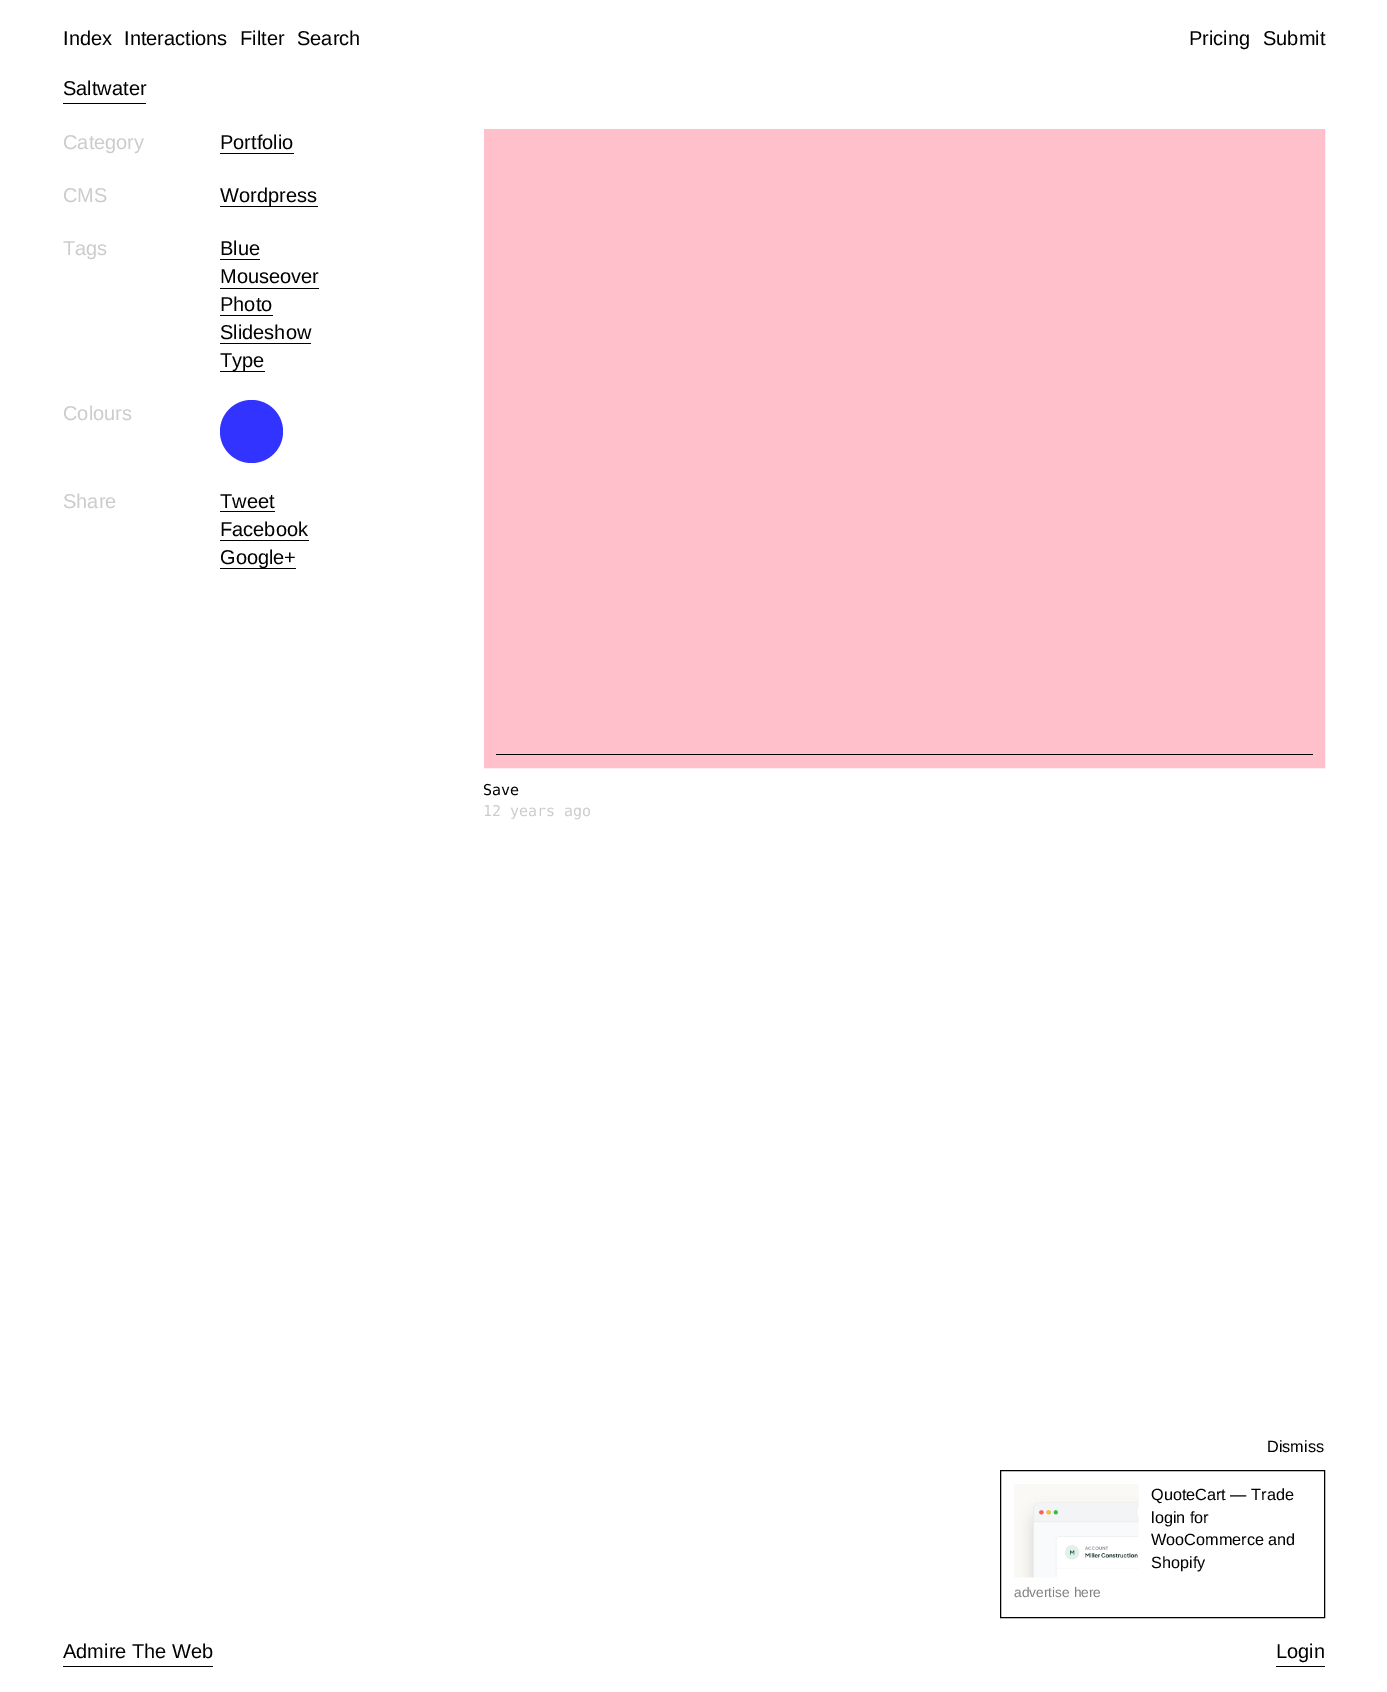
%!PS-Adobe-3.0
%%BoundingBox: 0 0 1387 1692
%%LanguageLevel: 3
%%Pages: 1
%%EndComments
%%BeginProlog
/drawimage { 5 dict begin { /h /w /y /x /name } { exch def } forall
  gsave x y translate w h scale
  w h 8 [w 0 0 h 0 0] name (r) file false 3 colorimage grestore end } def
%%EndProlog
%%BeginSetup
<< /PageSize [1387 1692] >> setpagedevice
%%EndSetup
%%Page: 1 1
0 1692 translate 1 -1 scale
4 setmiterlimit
1 setgray
0 0 1387 1692 rectfill
0 setgray
63 103 83 1 rectfill
220 153 74 1 rectfill
220 206 98 1 rectfill
220 259 40 1 rectfill
220 288 99 1 rectfill
220 315 53 1 rectfill
220 343 91 1 rectfill
220 371 45 1 rectfill
0.2 0.2 1 setrgbcolor
newpath 251.5 431.5 31.5 0 360 arc closepath fill
0 setgray
220 511 55 1 rectfill
220 540 89 1 rectfill
220 568 76 1 rectfill
1 0.753 0.796 setrgbcolor
13 setlinewidth
490.5 135.5 828 626 rectstroke
497 142 815 612 rectfill
0 setgray
496 754 817 1 rectfill
1 setlinewidth
1000.5 1470.5 324 147 rectstroke
(images/1.raw) 1014 1484 125 94 drawimage
63 1666 150 1 rectfill
1276 1666 49 1 rectfill
/LiberationSans-Regular [20 0 0 -20 0 0] selectfont
63 45 moveto (Index) show
124 45 moveto (Interactions) show
240 45 moveto (Filter) show
297 45 moveto (Search) show
1189 45 moveto (Pricing) show
1263 45 moveto (Submit) show
63 95 moveto (Saltwater) show
0.8 setgray
63 149 moveto (Category) show
0 setgray
220 149 moveto (Portfolio) show
0.8 setgray
63 202 moveto (CMS) show
0 setgray
220 202 moveto (Wordpress) show
0.8 setgray
63 255 moveto (Tags) show
0 setgray
220 255 moveto (Blue) show
220 283 moveto (Mouseover) show
220 311 moveto (Photo) show
220 339 moveto (Slideshow) show
220 367 moveto (Type) show
0.8 setgray
63 420 moveto (Colours) show
63 508 moveto (Share) show
0 setgray
220 508 moveto (Tweet) show
220 536 moveto (Facebook) show
220 564 moveto (Google+) show
/DejaVuSansMono-Regular [15 0 0 -15 0 0] selectfont
483 795 moveto (Save) show
0.8 setgray
483 816 moveto (12 years ago) show
/LiberationSans-Regular [16.25 0 0 -16.25 0 0] selectfont
0 setgray
1267 1452 moveto (Dismiss) show
1151 1500 moveto (QuoteCart — Trade) show
1151 1523 moveto (login for) show
1151 1545 moveto (WooCommerce and) show
1151 1568 moveto (Shopify) show
/LiberationSans-Regular [13.75 0 0 -13.75 0 0] selectfont
0.502 setgray
1014 1597 moveto (advertise here) show
/LiberationSans-Regular [20 0 0 -20 0 0] selectfont
0 setgray
63 1658 moveto (Admire The Web) show
1276 1658 moveto (Login) show
showpage
%%EOF
